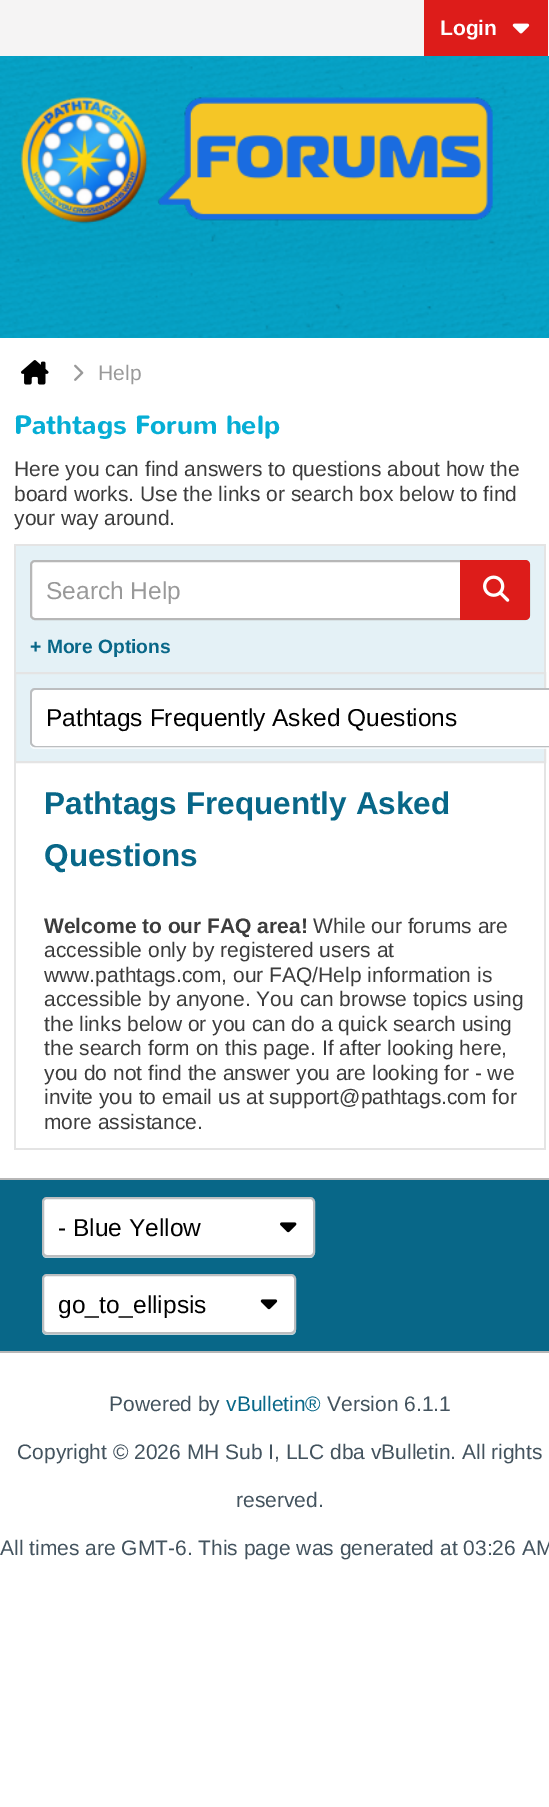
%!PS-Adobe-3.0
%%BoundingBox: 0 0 549 1807
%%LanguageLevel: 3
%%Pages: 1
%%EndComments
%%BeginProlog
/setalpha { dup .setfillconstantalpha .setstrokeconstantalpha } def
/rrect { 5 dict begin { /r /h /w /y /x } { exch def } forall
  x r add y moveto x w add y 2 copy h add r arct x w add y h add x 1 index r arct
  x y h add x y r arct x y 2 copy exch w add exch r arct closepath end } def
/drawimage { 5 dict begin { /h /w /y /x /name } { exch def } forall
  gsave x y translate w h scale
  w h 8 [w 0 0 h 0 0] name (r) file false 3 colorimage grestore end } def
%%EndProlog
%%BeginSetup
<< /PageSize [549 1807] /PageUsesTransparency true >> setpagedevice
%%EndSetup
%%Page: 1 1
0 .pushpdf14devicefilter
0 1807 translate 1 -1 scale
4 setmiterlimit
1 setgray
0 0 549 1807 rectfill
0.961 0.957 0.957 setrgbcolor
0 0 549 56 rectfill
0.867 0.11 0.102 setrgbcolor
424 0 124 56 rectfill
(images/1.raw) 512 23 18 11 drawimage
(images/2.raw) 0 56 549 282 drawimage
(images/3.raw) 21 97 472 127 drawimage
(images/4.raw) 21 360 28 25 drawimage
(images/5.raw) 74 364 10 17 drawimage
0.894 0.945 0.965 setrgbcolor
16 546 528 126 rectfill
0.894 setgray
14 544 532 2 rectfill
544 544 2 128 rectfill
14 544 2 128 rectfill
1 setgray
31 561 498 58 4 rrect gsave fill grestore
0.718 setgray
2 setlinewidth
stroke
0.867 0.11 0.102 setrgbcolor
newpath 460 560 moveto 525 560 lineto 528 560 530 562 530 565 curveto 530 615 lineto 530 618 528 620 525 620 curveto 460 620 lineto closepath fill
(images/6.raw) 483 575 27 27 drawimage
0.894 0.945 0.965 setrgbcolor
newpath 15 673 moveto 545 673 lineto 545 762 lineto 15 762 lineto closepath gsave fill grestore
0.894 setgray
stroke
0.75 setalpha
1 setgray
newpath 30 744 moveto 30 747 32 749 35 749 curveto 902 749 lineto 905 749 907 747 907 744 curveto 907 695 lineto 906 693 lineto 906 742 lineto 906 745 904 747 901 747 curveto 35 747 lineto 33 747 31 746 30 744 curveto closepath fill
1 setalpha
31 689 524 57 4 rrect gsave fill grestore
0.737 0.745 0.753 setrgbcolor
stroke
1 setgray
32 690 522 56 5 rrect fill
0.894 setgray
544 763 2 387 rectfill
14 1148 532 2 rectfill
14 763 2 387 rectfill
0.031 0.404 0.533 setrgbcolor
0 1180 549 171 rectfill
0.718 setgray
0 1178 549 2 rectfill
0 1351 549 2 rectfill
0.757 0.851 0.882 setrgbcolor
newpath 42 1251 moveto 42 1255 43 1258 47 1258 curveto 311 1258 lineto 314 1257 315 1254 315 1251 curveto 315 1254 313 1256 310 1256 curveto 47 1256 lineto 44 1256 42 1254 42 1251 curveto closepath fill
1 setgray
43 1198 271 58 4 rrect gsave fill grestore
0.737 0.745 0.753 setrgbcolor
stroke
(images/7.raw) 280 1222 17 11 drawimage
0.757 0.851 0.882 setrgbcolor
newpath 42 1328 moveto 42 1330 lineto 42 1333 44 1335 47 1335 curveto 291 1335 lineto 294 1335 296 1333 296 1330 curveto 296 1279 lineto 296 1328 lineto 296 1331 293 1334 290 1334 curveto 47 1334 lineto 44 1334 42 1331 42 1328 curveto closepath fill
1 setgray
43 1275 252 58 4 rrect gsave fill grestore
0.737 0.745 0.753 setrgbcolor
stroke
(images/8.raw) 260 1299 18 11 drawimage
/LiberationSans-Bold [21 0 0 -21 0 0] selectfont
1 setgray
440 35 moveto (Login) show
/LiberationSans-Regular [21 0 0 -21 0 0] selectfont
0.6 setgray
98 380 moveto (Help) show
/Nunito-Bold [26.25 0 0 -26.25 0 0] selectfont
0.024 0.682 0.835 setrgbcolor
14 434 moveto (Pathtags Forum help) show
/LiberationSans-Regular [21 0 0 -21 0 0] selectfont
0.235 setgray
14 476 moveto (Here you can find answers to questions about how the) show
14 501 moveto (board works. Use the links or search box below to find) show
14 525 moveto (your way around.) show
/LiberationSans-Regular [24.5 0 0 -24.5 0 0] selectfont
0.6 setgray
46 599 moveto (Search Help) show
/LiberationSans-Bold [19.25 0 0 -19.25 0 0] selectfont
0.031 0.404 0.533 setrgbcolor
30 653 moveto (+ More Options) show
/LiberationSans-Regular [24.5 0 0 -24.5 0 0] selectfont
0 setgray
46 726 moveto (Pathtags Frequently Asked Questions) show
/LiberationSans-Bold [31.5 0 0 -31.5 0 0] selectfont
0.031 0.404 0.533 setrgbcolor
44 814 moveto (Pathtags Frequently Asked) show
44 866 moveto (Questions) show
/LiberationSans-Bold [21 0 0 -21 0 0] selectfont
0.235 setgray
44 933 moveto (Welcome to our FAQ area!) show
/LiberationSans-Regular [21 0 0 -21 0 0] selectfont
313 933 moveto (While our forums are) show
44 957 moveto (accessible only by registered users at) show
44 982 moveto (www.pathtags.com, our FAQ/Help information is) show
44 1006 moveto (accessible by anyone. You can browse topics using) show
44 1031 moveto (the links below or you can do a quick search using) show
44 1055 moveto (the search form on this page. If after looking here,) show
44 1080 moveto (you do not find the answer you are looking for - we) show
44 1104 moveto (invite you to email us at support@pathtags.com for) show
44 1129 moveto (more assistance.) show
/LiberationSans-Regular [24.5 0 0 -24.5 0 0] selectfont
0 setgray
58 1236 moveto (- Blue Yellow) show
58 1313 moveto (go_to_ellipsis) show
/LiberationSans-Regular [21 0 0 -21 0 0] selectfont
0.263 0.325 0.369 setrgbcolor
109 1411 moveto (Powered by) show
0.031 0.404 0.533 setrgbcolor
226 1411 moveto (vBulletin®) show
0.263 0.325 0.369 setrgbcolor
327 1411 moveto (Version 6.1.1) show
17 1459 moveto (Copyright © 2026 MH Sub I, LLC dba vBulletin. All rights) show
236 1507 moveto (reserved.) show
0 1555 moveto (All times are GMT-6. This page was generated at 03:26 AM) show
.poppdf14devicefilter showpage
%%EOF
